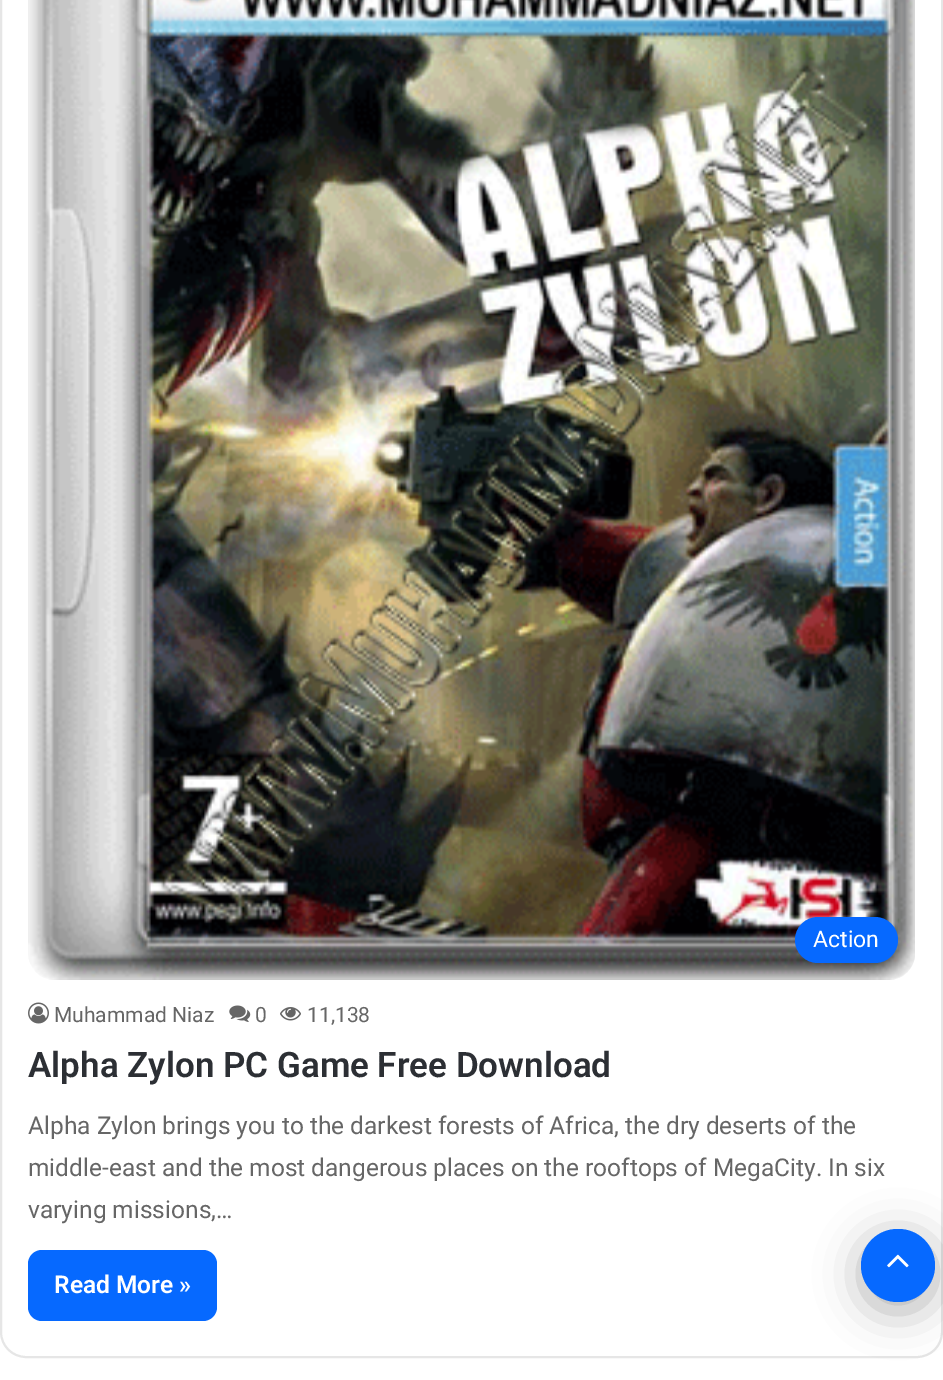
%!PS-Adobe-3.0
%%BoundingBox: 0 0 943 1380
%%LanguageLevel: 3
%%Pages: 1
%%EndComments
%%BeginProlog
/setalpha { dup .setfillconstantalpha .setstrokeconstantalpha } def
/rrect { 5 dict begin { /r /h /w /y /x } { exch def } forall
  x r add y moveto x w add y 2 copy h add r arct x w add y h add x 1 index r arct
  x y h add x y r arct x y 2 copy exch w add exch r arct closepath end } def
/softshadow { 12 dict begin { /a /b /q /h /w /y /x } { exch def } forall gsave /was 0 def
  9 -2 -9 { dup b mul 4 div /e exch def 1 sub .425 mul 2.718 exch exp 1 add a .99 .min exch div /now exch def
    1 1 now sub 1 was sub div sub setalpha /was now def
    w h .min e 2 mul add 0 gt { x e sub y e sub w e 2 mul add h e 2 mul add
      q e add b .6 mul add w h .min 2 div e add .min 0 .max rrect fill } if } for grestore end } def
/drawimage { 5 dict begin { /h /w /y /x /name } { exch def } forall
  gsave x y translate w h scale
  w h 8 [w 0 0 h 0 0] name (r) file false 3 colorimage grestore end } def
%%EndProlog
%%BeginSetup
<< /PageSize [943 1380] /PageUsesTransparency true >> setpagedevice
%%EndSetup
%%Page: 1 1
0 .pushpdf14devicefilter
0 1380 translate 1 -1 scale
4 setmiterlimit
1 setgray
0 0 943 1380 rectfill
0.902 setgray
2 setlinewidth
1 -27 941 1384 25 rrect stroke
(images/1.raw) 28 0 887 980 drawimage
0.024 0.412 1 setrgbcolor
795 917 103 46 23 rrect fill
(images/2.raw) 28 1002 21 22 drawimage
(images/3.raw) 229 1005 22 17 drawimage
(images/4.raw) 280 1007 21 14 drawimage
28 1250 189 71 14 rrect fill
0 setgray
861 1237 74 74 37 22 0.3 softshadow
0.024 0.412 1 setrgbcolor
861 1229 74 73 36.5 rrect fill
(images/5.raw) 887 1254 22 14 drawimage
/Roboto-Regular [23 0 0 -23 0 0] selectfont
1 setgray
813 947 moveto (Action) show
/Roboto-Regular [21 0 0 -21 0 0] selectfont
0.4 setgray
54 1022 moveto (Muhammad Niaz) show
255 1022 moveto (0) show
307 1022 moveto (11,138) show
/Roboto-SemiBold [35 0 0 -35 0 0] selectfont
0.173 0.184 0.204 setrgbcolor
28 1077 moveto (Alpha Zylon PC Game Free Download) show
/Roboto-Regular [24.5 0 0 -24.5 0 0] selectfont
0.4 setgray
28 1134 moveto (Alpha Zylon brings you to the darkest forests of Africa, the dry deserts of the) show
28 1176 moveto (middle-east and the most dangerous places on the rooftops of MegaCity. In six) show
28 1218 moveto (varying missions,…) show
/Roboto-SemiBold [24.5 0 0 -24.5 0 0] selectfont
1 setgray
54 1293 moveto (Read More ») show
.poppdf14devicefilter showpage
%%EOF
